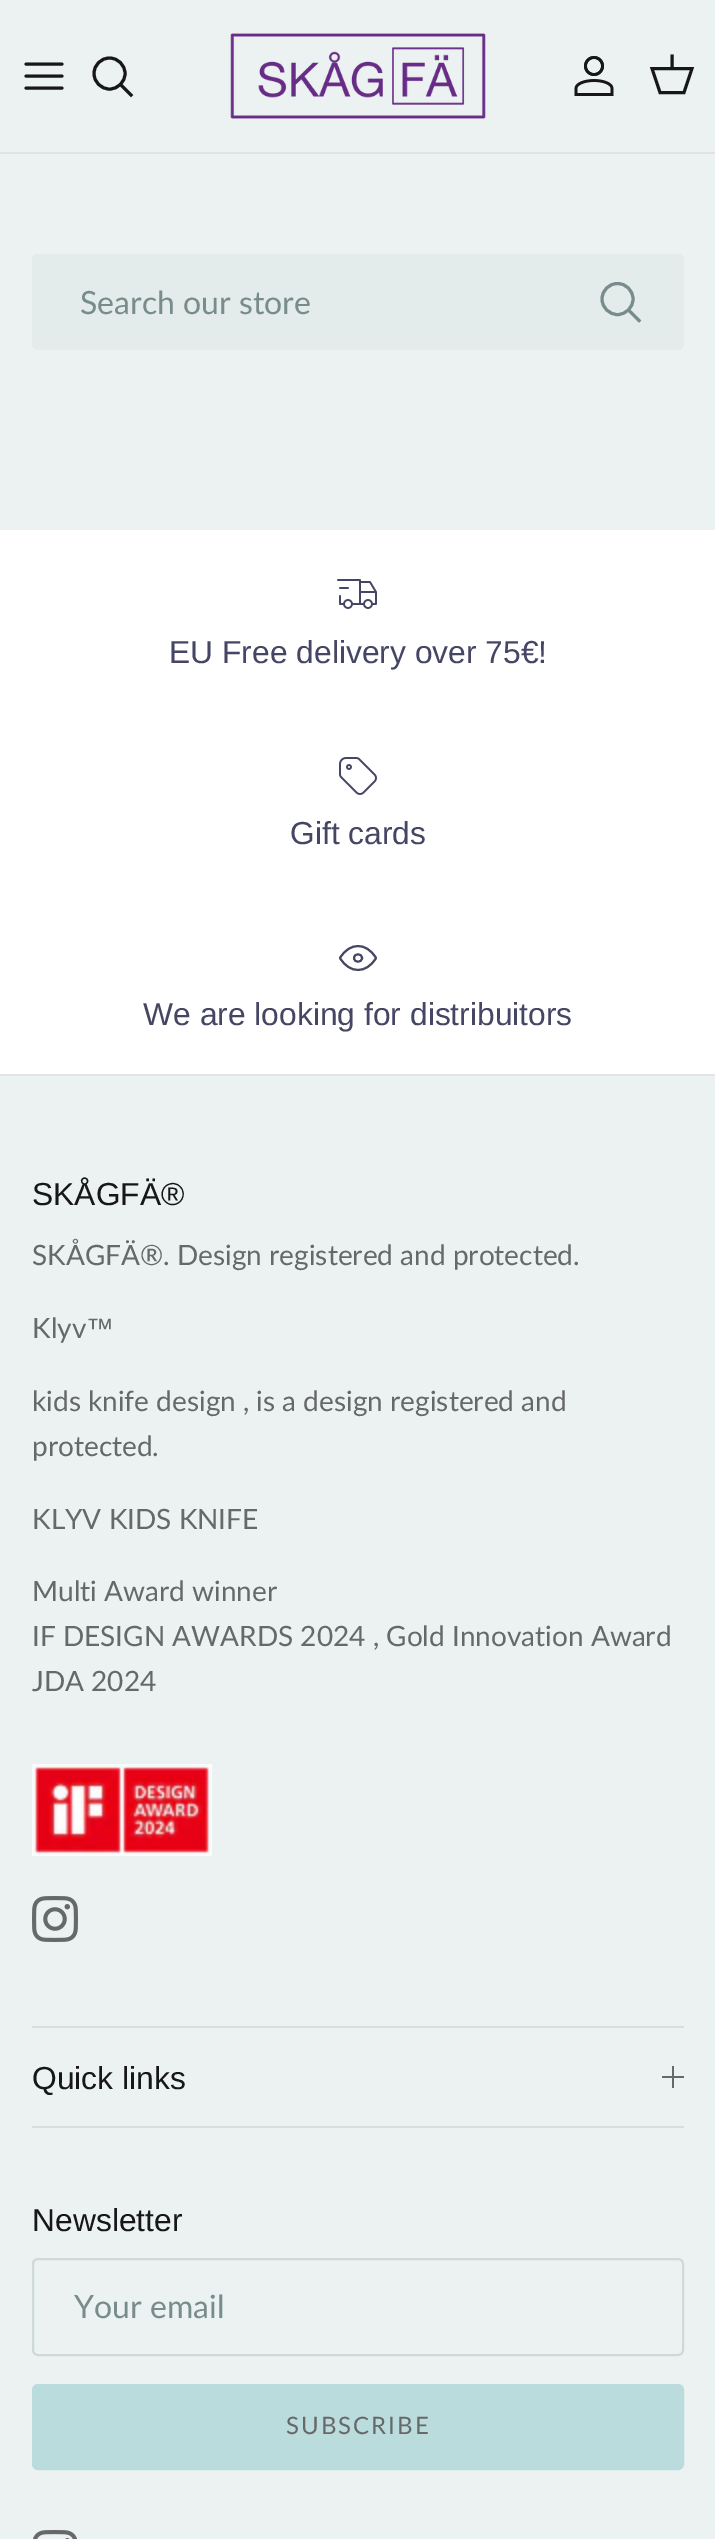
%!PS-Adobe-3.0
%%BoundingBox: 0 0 715 2539
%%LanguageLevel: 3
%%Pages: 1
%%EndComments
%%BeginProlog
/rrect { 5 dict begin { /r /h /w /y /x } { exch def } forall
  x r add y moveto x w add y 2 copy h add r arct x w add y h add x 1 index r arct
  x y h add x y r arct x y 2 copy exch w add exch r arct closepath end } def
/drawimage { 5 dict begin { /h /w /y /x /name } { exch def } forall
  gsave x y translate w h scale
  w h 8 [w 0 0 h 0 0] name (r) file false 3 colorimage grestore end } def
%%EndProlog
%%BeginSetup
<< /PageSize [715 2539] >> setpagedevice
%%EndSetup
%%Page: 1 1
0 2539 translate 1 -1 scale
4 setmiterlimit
0.925 0.949 0.949 setrgbcolor
0 0 715 2539 rectfill
0.886 setgray
0 152 715 2 rectfill
0.09 setgray
3 setlinewidth
1 setlinecap
1 setlinejoin
newpath 26 76 moveto 62 76 lineto 26 64 moveto 62 64 lineto 26 88 moveto 62 88 lineto stroke
0 setlinecap
0 setlinejoin
newpath 109.5 73.5 15.5 0 360 arc closepath stroke
2 setlinecap
newpath 122 86 moveto 131 95 lineto stroke
(images/1.raw) 230 33 256 86 drawimage
(images/2.raw) 574 56 40 40 drawimage
0 setlinecap
newpath 652 68.5 moveto 692 68.5 lineto 684 92.5 lineto 660 92.5 lineto closepath stroke
2 setlinecap
newpath 672 68 moveto 672 56 lineto stroke
0.894 0.922 0.922 setrgbcolor
32 254 652 96 6 rrect fill
0.475 0.549 0.549 setrgbcolor
0 setlinecap
newpath 617.5 299 15.5 0 360 arc closepath stroke
2 setlinecap
newpath 630 311.5 moveto 639 320.5 lineto stroke
1 setgray
0 530 715 544 rectfill
(images/3.raw) 337 579 40 30 drawimage
(images/4.raw) 339 757 38 38 drawimage
0.271 0.271 0.392 setrgbcolor
2 setlinewidth
1 setlinecap
1 setlinejoin
newpath 354 958 moveto 354 963 362 963 362 958 curveto 362 953 354 953 354 958 curveto 376 958 moveto 366.5 974 349.5 974 340 958 curveto 349.5 942 366.5 942 376 958 curveto stroke
0.894 setgray
0 1074 715 2 rectfill
(images/5.raw) 32 1764 180 92 drawimage
(images/6.raw) 32 1896 46 46 drawimage
0.847 0.867 0.867 setrgbcolor
32 2026 652 2 rectfill
32 2126 652 2 rectfill
0.404 0.408 0.412 setrgbcolor
672 2066 2 22 rectfill
662 2076 22 2 rectfill
0.812 0.851 0.851 setrgbcolor
0 setlinecap
0 setlinejoin
33 2259 650 96 5 rrect stroke
0.729 0.863 0.863 setrgbcolor
33 2385 650 84 5 rrect gsave fill grestore
stroke
(images/7.raw) 33 2530 44 9 drawimage
/Lato-Regular [32 0 0 -32 0 0] selectfont
0.475 0.549 0.549 setrgbcolor
80 314 moveto (Search our store) show
/LiberationSans-Regular [31.8 0 0 -31.8 0 0] selectfont
0.271 0.271 0.392 setrgbcolor
169 663 moveto (EU Free delivery over 75€!) show
290 844 moveto (Gift cards) show
143 1025 moveto (We are looking for distribuitors) show
0.09 setgray
32 1205 moveto (SKÅGFÄ®) show
/Lato-Regular [28 0 0 -28 0 0] selectfont
0.404 0.408 0.412 setrgbcolor
32 1265 moveto (SKÅGFÄ®. Design registered and protected.) show
32 1338 moveto (Klyv) show
/LiberationSans-Regular [28 0 0 -28 0 0] selectfont
86 1338 moveto (™) show
/Lato-Regular [28 0 0 -28 0 0] selectfont
32 1411 moveto (kids knife design , is a design registered and) show
32 1456 moveto (protected.) show
32 1529 moveto (KLYV KIDS KNIFE) show
32 1601 moveto (Multi Award winner) show
32 1646 moveto (IF DESIGN AWARDS 2024 , Gold Innovation Award) show
32 1691 moveto (JDA 2024) show
/LiberationSans-Regular [31.8 0 0 -31.8 0 0] selectfont
0.09 setgray
32 2089 moveto (Quick links) show
32 2231 moveto (Newsletter) show
/Lato-Regular [32 0 0 -32 0 0] selectfont
0.475 0.549 0.549 setrgbcolor
74 2318 moveto (Your email) show
/Lato-Regular [24 0 0 -24 0 0] selectfont
0.404 0.408 0.412 setrgbcolor
286 2434 moveto 2 0 (SUBSCRIBE) ashow
showpage
%%EOF
